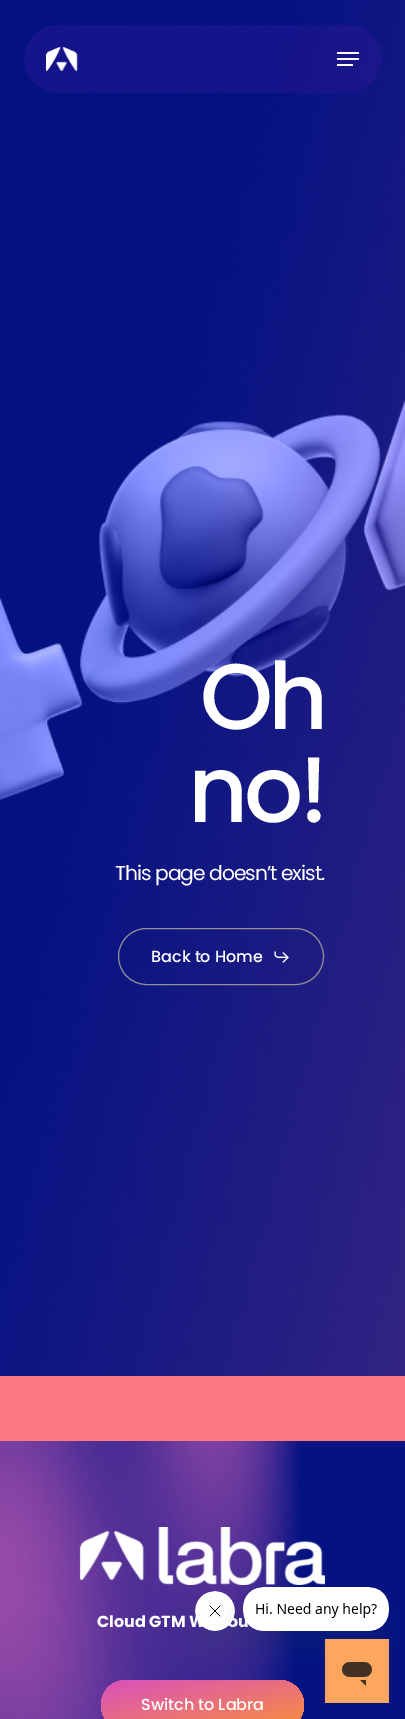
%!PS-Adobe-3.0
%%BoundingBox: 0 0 405 1719
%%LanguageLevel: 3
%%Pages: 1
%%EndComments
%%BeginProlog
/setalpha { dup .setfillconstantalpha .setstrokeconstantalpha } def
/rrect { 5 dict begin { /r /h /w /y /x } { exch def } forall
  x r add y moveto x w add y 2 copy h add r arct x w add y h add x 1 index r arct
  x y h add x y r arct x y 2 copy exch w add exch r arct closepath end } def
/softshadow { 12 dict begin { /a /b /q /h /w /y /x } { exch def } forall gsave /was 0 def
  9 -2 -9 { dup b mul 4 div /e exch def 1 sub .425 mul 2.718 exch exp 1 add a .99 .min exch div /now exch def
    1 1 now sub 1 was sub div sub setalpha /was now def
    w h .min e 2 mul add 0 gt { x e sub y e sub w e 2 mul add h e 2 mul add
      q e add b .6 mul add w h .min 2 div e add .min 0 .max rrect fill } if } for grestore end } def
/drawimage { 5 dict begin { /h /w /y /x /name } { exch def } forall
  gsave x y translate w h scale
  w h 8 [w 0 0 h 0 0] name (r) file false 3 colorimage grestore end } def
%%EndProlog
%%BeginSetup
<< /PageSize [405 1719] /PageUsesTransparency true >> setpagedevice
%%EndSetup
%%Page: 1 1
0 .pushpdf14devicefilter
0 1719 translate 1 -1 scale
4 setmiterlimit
0.016 0.071 0.51 setrgbcolor
0 0 405 1719 rectfill
(images/2.raw) 0 0 405 1376 drawimage
0.32 setalpha
0.22 0.09 0.608 setrgbcolor
24 25 357 68 34 rrect fill
1 setalpha
(images/1.raw) 46 47 32 24 drawimage
1 setgray
337 52 22 2 rectfill
337 64 16 2 rectfill
337 58 22 2 rectfill
1 0.475 0.514 setrgbcolor
0 1376 405 65 rectfill
0.569 setgray
118.5 928.5 205 56 28 rrect stroke
(images/3.raw) 274 951 15 12 drawimage
(images/4.raw) 0 1441 300 278 drawimage
(images/5.raw) 79 1527 246 58 drawimage
gsave 101 1680 203 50 25 rrect clip newpath
<< /ShadingType 2 /ColorSpace /DeviceRGB /Coords [191 1658 214 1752] /Extend [true true] /Function << /FunctionType 2 /Domain [0 1] /C0 [0.847 0.314 0.749] /C1 [0.98 0.565 0.22] /N 1 >> >> shfill grestore
0.09 0.286 0.302 setrgbcolor
195 1611 40 40 20 15 0.15 softshadow
/Poppins-Medium [93 0 0 -93 0 0] selectfont
1 setgray
200 729 moveto -4.5 0 (Oh) ashow
188 822 moveto -4.5 0 (no!) ashow
/Poppins-Regular [20.25 0 0 -20.25 0 0] selectfont
115 880 moveto -1 0 (This page doesn’t exist.) ashow
/Poppins-Medium [16 0 0 -16 0 0] selectfont
151 962 moveto (Back to Home) show
/Poppins-Bold [16 0 0 -16 0 0] selectfont
97 1627 moveto (Cloud GTM W) show
228 1627 moveto (ou) show
/Poppins-Medium [16 0 0 -16 0 0] selectfont
141 1710 moveto (Switch to Labra) show
(images/7.raw) 195 1591 40 40 drawimage
0.09 0.286 0.302 setrgbcolor
243 1607 146 44 20 15 0.15 softshadow
(images/6.raw) 243 1587 146 44 drawimage
(images/8.raw) 325 1639 64 64 drawimage
.poppdf14devicefilter showpage
%%EOF
